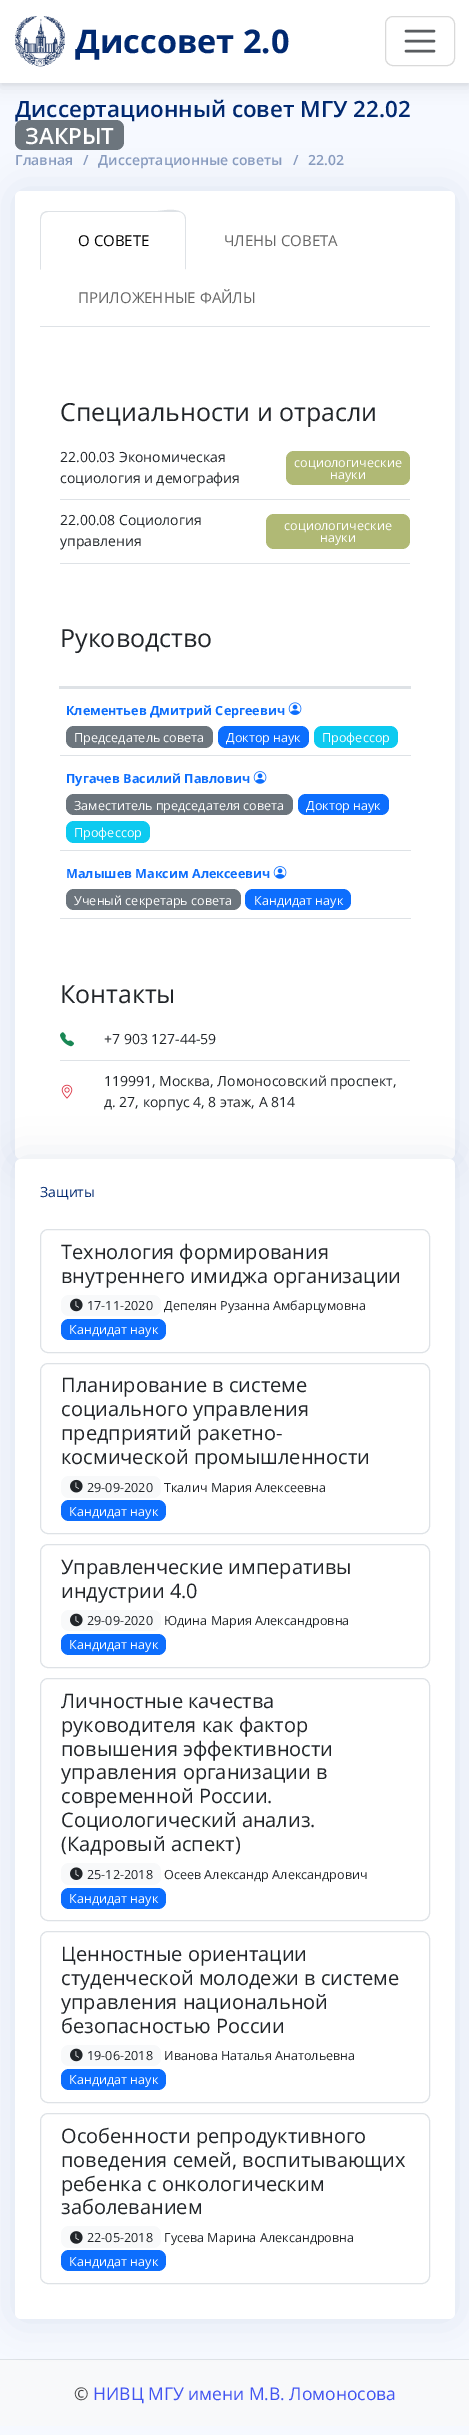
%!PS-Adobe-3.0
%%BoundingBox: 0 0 469 2435
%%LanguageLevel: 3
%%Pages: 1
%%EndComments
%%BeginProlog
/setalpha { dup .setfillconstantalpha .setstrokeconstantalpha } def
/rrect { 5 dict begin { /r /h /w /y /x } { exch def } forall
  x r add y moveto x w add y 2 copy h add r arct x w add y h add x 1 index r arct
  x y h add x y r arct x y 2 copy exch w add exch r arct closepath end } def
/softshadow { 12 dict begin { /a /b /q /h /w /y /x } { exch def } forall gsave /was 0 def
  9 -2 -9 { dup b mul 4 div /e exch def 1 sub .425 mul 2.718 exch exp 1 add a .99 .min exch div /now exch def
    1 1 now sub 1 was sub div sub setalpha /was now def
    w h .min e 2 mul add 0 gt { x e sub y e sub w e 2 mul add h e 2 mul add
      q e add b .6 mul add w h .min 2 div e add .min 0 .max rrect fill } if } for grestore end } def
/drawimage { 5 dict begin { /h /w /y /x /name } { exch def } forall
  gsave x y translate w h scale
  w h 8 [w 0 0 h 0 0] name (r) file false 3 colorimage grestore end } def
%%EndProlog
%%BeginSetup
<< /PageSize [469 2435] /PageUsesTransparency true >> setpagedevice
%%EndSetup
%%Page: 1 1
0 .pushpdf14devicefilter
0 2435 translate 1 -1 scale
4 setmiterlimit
0.965 0.976 1 setrgbcolor
0 0 469 2435 rectfill
0 setgray
0 3 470 82 0 2.5 0.05 softshadow
0 5 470 83 0 7.5 0.07 softshadow
1 setgray
0 0 469 83 rectfill
(images/1.raw) 15 16 50 51 drawimage
0.851 setgray
385.5 16.5 69 49 7.5 rrect stroke
0.349 0.361 0.373 setrgbcolor
2.5 setlinewidth
1 setlinecap
newpath 406 31 moveto 434 31 lineto 406 41 moveto 434 41 lineto 406 51 moveto 434 51 lineto stroke
0.973 0.976 0.98 setrgbcolor
0 2360 469 66 rectfill
0.871 0.886 0.902 setrgbcolor
0 2359 469 1 rectfill
/OpenSans-Bold [32.5 0 0 -32.5 0 0] selectfont
0.004 0.161 0.439 setrgbcolor
75 53 moveto (Диссовет 2.0) show
/OpenSans-SemiBold [22.4 0 0 -22.4 0 0] selectfont
15 117 moveto (Диссертационный совет МГУ 22.02) show
0.424 0.459 0.49 setrgbcolor
15 120 109 30 8 rrect fill
1 setgray
25 144 moveto (ЗАКРЫТ) show
/OpenSans-SemiBold [14 0 0 -14 0 0] selectfont
0.537 0.608 0.741 setrgbcolor
15 165 moveto (Главная) show
83 165 moveto (/) show
98 165 moveto (Диссертационные советы) show
293 165 moveto (/) show
308 165 moveto (22.02) show
0.004 0.161 0.439 setrgbcolor
15 191 440 968 6 19 0.1 softshadow
1 setgray
15 191 440 968 6 rrect fill
0.871 0.886 0.902 setrgbcolor
40 326 390 1 rectfill
newpath 48 212 moveto 46 212 44 213 43 214 curveto 42 213 lineto 46 211 lineto 158 211 lineto 160 211 178 207 184 214 curveto 183 214 lineto 182 213 181 212 179 212 curveto closepath fill
newpath 184 214 moveto 185 215 186 217 186 219 curveto 186 270 lineto 185 269 lineto 185 219 lineto 185 217 184 215 183 214 curveto closepath fill
1 setgray
newpath 186 270 moveto 185 269 lineto 41 269 lineto 40 270 lineto closepath fill
0.871 0.886 0.902 setrgbcolor
newpath 40 270 moveto 41 269 lineto 41 219 lineto 41 217 42 215 43 214 curveto 42 213 lineto 41 215 40 217 40 219 curveto closepath fill
/OpenSans-Regular [15 0 0 -15 0 0] selectfont
0 setgray
78 246 moveto (О СОВЕТЕ) show
0.4 setgray
224 246 moveto (ЧЛЕНЫ СОВЕТА) show
78 303 moveto (ПРИЛОЖЕННЫЕ ФАЙЛЫ) show
/OpenSans-Regular [25 0 0 -25 0 0] selectfont
0.129 0.145 0.161 setrgbcolor
60 421 moveto (Специальности и отрасли) show
0.871 0.886 0.902 setrgbcolor
60 499 350 1 rectfill
/OpenSans-Regular [14 0 0 -14 0 0] selectfont
0.129 0.145 0.161 setrgbcolor
60 462 moveto (22.00.03 Экономическая) show
60 483 moveto (социология и демография) show
0.69 0.725 0.459 setrgbcolor
286 451 124 34 8 rrect fill
/OpenSans-Regular [12.6 0 0 -12.6 0 0] selectfont
1 setgray
294 467 moveto (социологические) show
330 479 moveto (науки) show
0.871 0.886 0.902 setrgbcolor
60 563 350 1 rectfill
/OpenSans-Regular [14 0 0 -14 0 0] selectfont
0.129 0.145 0.161 setrgbcolor
60 525 moveto (22.00.08 Социология) show
60 546 moveto (управления) show
0.69 0.725 0.459 setrgbcolor
266 514 144 35 8 rrect fill
/OpenSans-Regular [12.6 0 0 -12.6 0 0] selectfont
1 setgray
284 530 moveto (социологические) show
320 542 moveto (науки) show
/OpenSans-Regular [25 0 0 -25 0 0] selectfont
0.129 0.145 0.161 setrgbcolor
60 647 moveto (Руководство) show
0.871 0.886 0.902 setrgbcolor
59 686 352 3 rectfill
60 755 351 1 rectfill
/OpenSans-Bold [12.6 0 0 -12.6 0 0] selectfont
0.051 0.431 0.992 setrgbcolor
66 715 moveto (Клементьев Дмитрий Сергеевич) show
(images/2.raw) 288 702 14 13 drawimage
0.424 0.459 0.49 setrgbcolor
66 726 147 22 8 rrect fill
/OpenSans-Regular [12.6 0 0 -12.6 0 0] selectfont
1 setgray
74 742 moveto (Председатель совета) show
0.051 0.431 0.992 setrgbcolor
218 726 91 22 8 rrect fill
1 setgray
226 742 moveto (Доктор наук) show
0.051 0.792 0.941 setrgbcolor
314 726 84 22 8 rrect fill
1 setgray
322 742 moveto (Профессор) show
0.871 0.886 0.902 setrgbcolor
60 850 351 1 rectfill
/OpenSans-Bold [12.6 0 0 -12.6 0 0] selectfont
0.051 0.431 0.992 setrgbcolor
66 783 moveto (Пугачев Василий Павлович) show
(images/3.raw) 253 771 14 13 drawimage
0.424 0.459 0.49 setrgbcolor
66 794 227 21 8 rrect fill
/OpenSans-Regular [12.6 0 0 -12.6 0 0] selectfont
1 setgray
74 810 moveto (Заместитель председателя совета) show
0.051 0.431 0.992 setrgbcolor
298 794 91 21 8 rrect fill
1 setgray
306 810 moveto (Доктор наук) show
0.051 0.792 0.941 setrgbcolor
66 821 84 22 8 rrect fill
1 setgray
74 837 moveto (Профессор) show
0.871 0.886 0.902 setrgbcolor
60 918 351 1 rectfill
/OpenSans-Bold [12.6 0 0 -12.6 0 0] selectfont
0.051 0.431 0.992 setrgbcolor
66 878 moveto (Малышев Максим Алексеевич) show
(images/3.raw) 273 866 14 13 drawimage
0.424 0.459 0.49 setrgbcolor
66 889 175 21 8 rrect fill
/OpenSans-Regular [12.6 0 0 -12.6 0 0] selectfont
1 setgray
74 905 moveto (Ученый секретарь совета) show
0.051 0.431 0.992 setrgbcolor
245 889 106 21 8 rrect fill
1 setgray
254 905 moveto (Кандидат наук) show
/OpenSans-Regular [25 0 0 -25 0 0] selectfont
0.129 0.145 0.161 setrgbcolor
60 1003 moveto (Контакты) show
0.871 0.886 0.902 setrgbcolor
60 1060 350 1 rectfill
(images/4.raw) 60 1032 14 15 drawimage
/OpenSans-Regular [14 0 0 -14 0 0] selectfont
0.129 0.145 0.161 setrgbcolor
104 1044 moveto (+7 903 127-44-59) show
(images/5.raw) 61 1084 12 15 drawimage
104 1086 moveto (119991, Москва, Ломоносовский проспект,) show
104 1107 moveto (д. 27, корпус 4, 8 этаж, А 814) show
0.004 0.161 0.439 setrgbcolor
15 1159 440 1160 6 19 0.1 softshadow
1 setgray
15 1159 440 1160 6 rrect fill
0.004 0.161 0.439 setrgbcolor
40 1197 moveto (Защиты) show
0.871 0.886 0.902 setrgbcolor
1 setlinewidth
0 setlinecap
40.5 1229.5 389 123 7.5 rrect stroke
/OpenSans-Regular [20 0 0 -20 0 0] selectfont
0.129 0.145 0.161 setrgbcolor
61 1259 moveto (Технология формирования) show
61 1283 moveto (внутреннего имиджа организации) show
0.973 0.976 0.98 setrgbcolor
61 1295 100 21 8 rrect fill
(images/6.raw) 70 1298 13 14 drawimage
/OpenSans-Regular [12.6 0 0 -12.6 0 0] selectfont
0.129 0.145 0.161 setrgbcolor
87 1310 moveto (17-11-2020) show
164 1310 moveto (Депелян Рузанна Амбарцумовна) show
0.051 0.431 0.992 setrgbcolor
61 1319 105 21 8 rrect fill
1 setgray
69 1334 moveto (Кандидат наук) show
0.871 0.886 0.902 setrgbcolor
40.5 1363.5 389 170 7.5 rrect stroke
/OpenSans-Regular [20 0 0 -20 0 0] selectfont
0.129 0.145 0.161 setrgbcolor
61 1392 moveto (Планирование в системе) show
61 1416 moveto (социального управления) show
61 1440 moveto (предприятий ракетно-) show
61 1464 moveto (космической промышленности) show
0.973 0.976 0.98 setrgbcolor
61 1476 100 22 8 rrect fill
(images/7.raw) 70 1479 13 14 drawimage
/OpenSans-Regular [12.6 0 0 -12.6 0 0] selectfont
0.129 0.145 0.161 setrgbcolor
87 1492 moveto (29-09-2020) show
164 1492 moveto (Ткалич Мария Алексеевна) show
0.051 0.431 0.992 setrgbcolor
61 1500 105 21 8 rrect fill
1 setgray
69 1516 moveto (Кандидат наук) show
0.871 0.886 0.902 setrgbcolor
40.5 1544.5 389 123 7.5 rrect stroke
/OpenSans-Regular [20 0 0 -20 0 0] selectfont
0.129 0.145 0.161 setrgbcolor
61 1574 moveto (Управленческие императивы) show
61 1598 moveto (индустрии 4.0) show
0.973 0.976 0.98 setrgbcolor
61 1610 100 21 8 rrect fill
(images/6.raw) 70 1613 13 14 drawimage
/OpenSans-Regular [12.6 0 0 -12.6 0 0] selectfont
0.129 0.145 0.161 setrgbcolor
87 1625 moveto (29-09-2020) show
164 1625 moveto (Юдина Мария Александровна) show
0.051 0.431 0.992 setrgbcolor
61 1634 105 21 8 rrect fill
1 setgray
69 1649 moveto (Кандидат наук) show
0.871 0.886 0.902 setrgbcolor
40.5 1678.5 389 242 7.5 rrect stroke
/OpenSans-Regular [20 0 0 -20 0 0] selectfont
0.129 0.145 0.161 setrgbcolor
61 1708 moveto (Личностные качества) show
61 1732 moveto (руководителя как фактор) show
61 1756 moveto (повышения эффективности) show
61 1779 moveto (управления организации в) show
61 1803 moveto (современной России.) show
61 1827 moveto (Социологический анализ.) show
61 1851 moveto (\(Кадровый аспект\)) show
0.973 0.976 0.98 setrgbcolor
61 1863 100 22 8 rrect fill
(images/8.raw) 70 1867 13 13 drawimage
/OpenSans-Regular [12.6 0 0 -12.6 0 0] selectfont
0.129 0.145 0.161 setrgbcolor
87 1879 moveto (25-12-2018) show
164 1879 moveto (Осеев Александр Александрович) show
0.051 0.431 0.992 setrgbcolor
61 1888 105 21 8 rrect fill
1 setgray
69 1903 moveto (Кандидат наук) show
0.871 0.886 0.902 setrgbcolor
40.5 1931.5 389 171 7.5 rrect stroke
/OpenSans-Regular [20 0 0 -20 0 0] selectfont
0.129 0.145 0.161 setrgbcolor
61 1961 moveto (Ценностные ориентации) show
61 1985 moveto (студенческой молодежи в системе) show
61 2009 moveto (управления национальной) show
61 2033 moveto (безопасностью России) show
0.973 0.976 0.98 setrgbcolor
61 2045 100 21 8 rrect fill
(images/6.raw) 70 2048 13 14 drawimage
/OpenSans-Regular [12.6 0 0 -12.6 0 0] selectfont
0.129 0.145 0.161 setrgbcolor
87 2060 moveto (19-06-2018) show
164 2060 moveto (Иванова Наталья Анатольевна) show
0.051 0.431 0.992 setrgbcolor
61 2069 105 21 8 rrect fill
1 setgray
69 2084 moveto (Кандидат наук) show
0.871 0.886 0.902 setrgbcolor
40.5 2113.5 389 170 7.5 rrect stroke
/OpenSans-Regular [20 0 0 -20 0 0] selectfont
0.129 0.145 0.161 setrgbcolor
61 2143 moveto (Особенности репродуктивного) show
61 2167 moveto (поведения семей, воспитывающих) show
61 2191 moveto (ребенка с онкологическим) show
61 2214 moveto (заболеванием) show
0.973 0.976 0.98 setrgbcolor
61 2226 100 22 8 rrect fill
(images/9.raw) 70 2231 13 13 drawimage
/OpenSans-Regular [12.6 0 0 -12.6 0 0] selectfont
0.129 0.145 0.161 setrgbcolor
87 2242 moveto (22-05-2018) show
164 2242 moveto (Гусева Марина Александровна) show
0.051 0.431 0.992 setrgbcolor
61 2250 105 21 8 rrect fill
1 setgray
69 2266 moveto (Кандидат наук) show
/OpenSans-Regular [17.5 0 0 -17.5 0 0] selectfont
0.267 setgray
74 2400 moveto (©) show
0.255 0.329 0.945 setrgbcolor
93 2400 moveto (НИВЦ МГУ имени М.В. Ломоносова) show
.poppdf14devicefilter showpage
%%EOF
